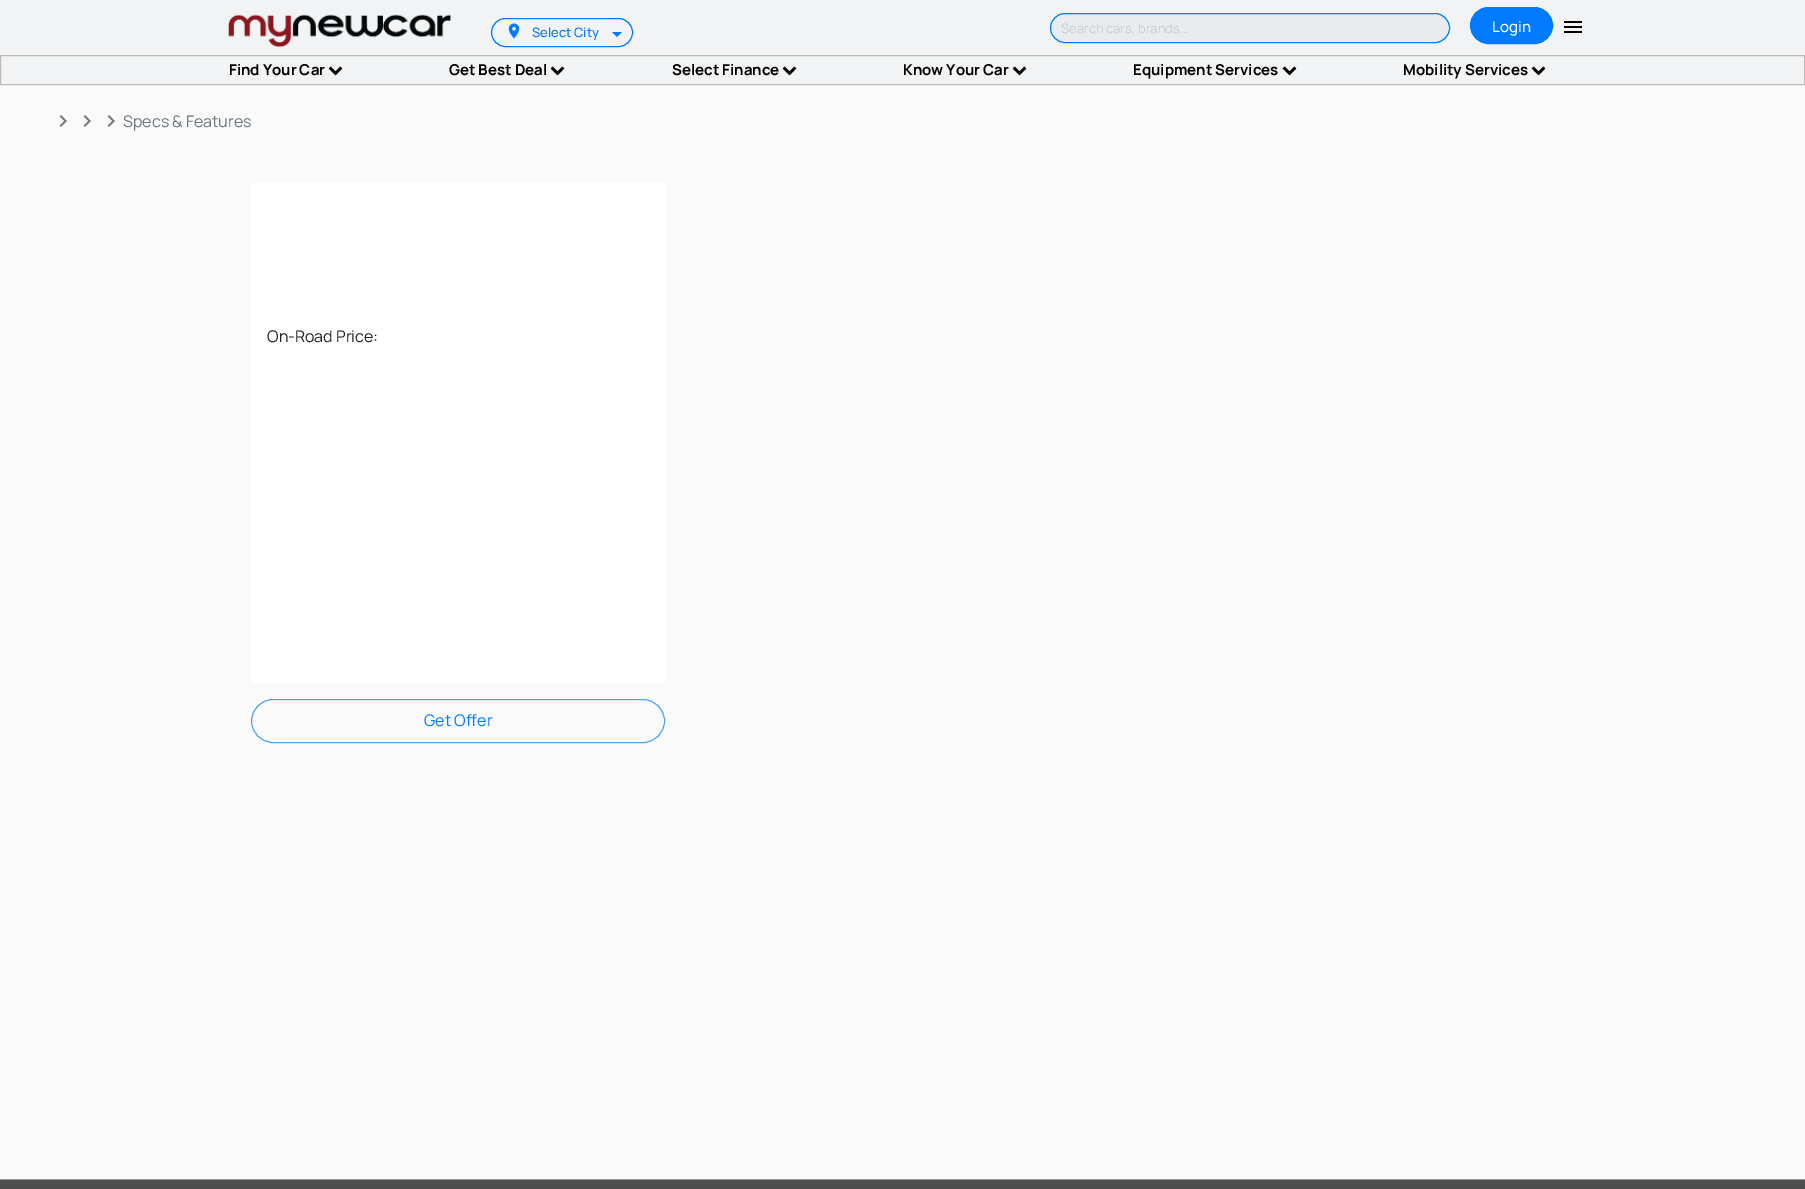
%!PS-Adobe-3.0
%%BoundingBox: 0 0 1805 1189
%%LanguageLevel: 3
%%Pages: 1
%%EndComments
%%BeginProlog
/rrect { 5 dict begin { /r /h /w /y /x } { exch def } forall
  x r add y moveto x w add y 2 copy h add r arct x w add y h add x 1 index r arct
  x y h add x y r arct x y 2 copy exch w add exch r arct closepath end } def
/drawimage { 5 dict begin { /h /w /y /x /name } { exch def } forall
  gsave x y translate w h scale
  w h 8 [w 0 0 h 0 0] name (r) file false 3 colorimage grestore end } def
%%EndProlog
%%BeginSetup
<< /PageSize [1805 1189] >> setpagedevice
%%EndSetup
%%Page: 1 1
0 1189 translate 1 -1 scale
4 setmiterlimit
0.98 setgray
0 0 1805 1189 rectfill
0.949 0.953 0.957 setrgbcolor
0 0 1805 55 rectfill
(images/1.raw) 228 14 224 34 drawimage
0 0.482 1 setrgbcolor
491.5 18.5 141 28 14 rrect stroke
(images/2.raw) 508 23 12 16 drawimage
newpath 612 32 moveto 622 32 lineto 617 37 lineto closepath fill
0.914 0.925 0.937 setrgbcolor
1050.5 13.5 399 29 14.5 rrect gsave fill grestore
0 0.482 1 setrgbcolor
stroke
1470.5 7.5 82 36 18 rrect gsave fill grestore
stroke
(images/3.raw) 1564 21 18 12 drawimage
0.949 0.953 0.957 setrgbcolor
newpath 0.5 55.5 moveto 1804.5 55.5 lineto 1804.5 84.5 lineto 0.5 84.5 lineto closepath gsave fill grestore
0.733 setgray
stroke
(images/4.raw) 328 66 15 10 drawimage
(images/4.raw) 550 66 15 10 drawimage
(images/4.raw) 782 66 15 10 drawimage
(images/4.raw) 1012 66 15 10 drawimage
(images/4.raw) 1282 66 15 10 drawimage
(images/4.raw) 1531 66 15 10 drawimage
(images/5.raw) 59 115 8 12 drawimage
(images/5.raw) 83 115 8 12 drawimage
(images/5.raw) 107 115 8 12 drawimage
1 setgray
251 183 414 500 rectfill
0.298 0.647 0.961 setrgbcolor
251.5 699.5 413 43 21.5 rrect stroke
0.306 setgray
0 1180 1805 9 rectfill
0.592 setgray
0 1179 1805 1 rectfill
/Manrope-Medium [13 0 0 -13 0 0] selectfont
0 0.482 1 setrgbcolor
532 37 moveto (Select City) show
/Manrope-Regular [13 0 0 -13 0 0] selectfont
0.796 setgray
1061 33 moveto (Search cars, brands...) show
/Manrope-Medium [15 0 0 -15 0 0] selectfont
1 setgray
1492 32 moveto (Login) show
/Manrope-Bold [15 0 0 -15 0 0] selectfont
0 setgray
229 75 moveto (Find Your Car) show
449 75 moveto (Get Best Deal) show
672 75 moveto (Select Finance) show
903 75 moveto (Know Your Car) show
1133 75 moveto (Equipment Services) show
1403 75 moveto (Mobility Services) show
/Manrope-Regular [16 0 0 -16 0 0] selectfont
0.424 0.459 0.49 setrgbcolor
123 127 moveto (Specs & Features) show
0.129 setgray
267 342 moveto (On-Road Price:) show
0 0.482 1 setrgbcolor
424 726 moveto (Get Offer) show
showpage
%%EOF
